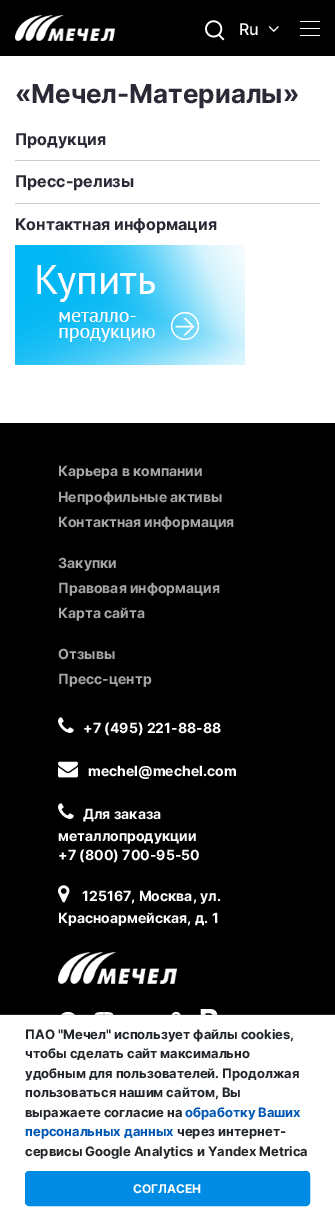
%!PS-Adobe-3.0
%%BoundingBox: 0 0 335 1216
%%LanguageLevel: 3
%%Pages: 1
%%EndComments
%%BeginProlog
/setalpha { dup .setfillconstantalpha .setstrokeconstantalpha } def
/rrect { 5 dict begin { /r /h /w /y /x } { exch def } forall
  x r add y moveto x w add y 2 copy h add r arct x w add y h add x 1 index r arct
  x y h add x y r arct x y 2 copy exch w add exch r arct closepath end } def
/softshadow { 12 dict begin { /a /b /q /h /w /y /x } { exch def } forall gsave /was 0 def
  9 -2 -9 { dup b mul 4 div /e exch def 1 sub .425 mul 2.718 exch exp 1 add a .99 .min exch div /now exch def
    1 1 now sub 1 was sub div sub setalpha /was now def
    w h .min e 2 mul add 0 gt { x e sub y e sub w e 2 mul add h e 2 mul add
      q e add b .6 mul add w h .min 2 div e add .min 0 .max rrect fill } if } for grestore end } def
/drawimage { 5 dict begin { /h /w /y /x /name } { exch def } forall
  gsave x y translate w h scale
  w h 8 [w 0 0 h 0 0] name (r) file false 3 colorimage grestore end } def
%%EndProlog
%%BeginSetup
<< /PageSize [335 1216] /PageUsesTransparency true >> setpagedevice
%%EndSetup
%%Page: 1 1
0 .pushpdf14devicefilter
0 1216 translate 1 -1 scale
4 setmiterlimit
1 setgray
0 0 335 1216 rectfill
0 setgray
0 0 335 56 rectfill
(images/1.raw) 15 15 100 26 drawimage
(images/2.raw) 205 20 20 21 drawimage
(images/3.raw) 268 26 11 6 drawimage
1 setgray
300 21 20 1 rectfill
300 35 20 1 rectfill
300 28 20 1 rectfill
0.796 0.796 0.816 setrgbcolor
15 160 305 1 rectfill
15 203 305 1 rectfill
(images/4.raw) 15 245 230 120 drawimage
0 setgray
0 423 335 592 rectfill
(images/5.raw) 58 717 16 16 drawimage
(images/6.raw) 58 761 20 17 drawimage
(images/5.raw) 58 803 16 16 drawimage
(images/7.raw) 58 885 12 18 drawimage
(images/8.raw) 58 952 119 32 drawimage
(images/9.raw) 60 1011 16 4 drawimage
(images/10.raw) 94 1012 20 3 drawimage
(images/11.raw) 171 1011 10 4 drawimage
(images/12.raw) 200 1009 18 6 drawimage
0.502 setgray
0 1015 335 201 0 0.5 1 softshadow
1 setgray
0 1015 335 201 rectfill
0 0.549 0.894 setrgbcolor
25.5 1171.5 284 34 3.5 rrect gsave fill grestore
stroke
/Inter-Medium [16 0 0 -16 0 0] selectfont
1 setgray
239 35 moveto (Ru) show
/Inter-Bold [26 0 0 -26 0 0] selectfont
0.165 0.165 0.212 setrgbcolor
15 103 moveto («Мечел-Материалы») show
/Inter-Bold [16 0 0 -16 0 0] selectfont
15 145 moveto (Продукция) show
15 187 moveto (Пресс-релизы) show
15 230 moveto (Контактная информация) show
/Inter-Bold [14 0 0 -14 0 0] selectfont
0.647 setgray
58 476 moveto (Карьера в компании) show
58 502 moveto (Непрофильные активы) show
58 527 moveto (Контактная информация) show
58 568 moveto (Закупки) show
58 593 moveto (Правовая информация) show
58 618 moveto (Карта сайта) show
58 659 moveto (Отзывы) show
58 684 moveto (Пресс-центр) show
1 setgray
83 733 moveto (+7 \(495\) 221-88-88) show
88 776 moveto (mechel@mechel.com) show
83 819 moveto (Для заказа) show
58 841 moveto (металлопродукции) show
58 860 moveto (+7 \(800\) 700-95-50) show
82 901 moveto (125167, Москва, ул.) show
58 923 moveto (Красноармейская, д. 1) show
/Inter-Bold [13 0 0 -13 0 0] selectfont
0.129 0.145 0.161 setrgbcolor
25 1039 moveto (ПАО "Мечел" использует файлы cookies,) show
25 1058 moveto (чтобы сделать сайт максимально) show
25 1078 moveto (удобным для пользователей. Продолжая) show
25 1097 moveto (пользоваться нашим сайтом, Вы) show
25 1117 moveto (выражаете согласие на) show
0 0.337 0.702 setrgbcolor
185 1117 moveto (обработку Ваших) show
25 1136 moveto (персональных данных) show
0.129 0.145 0.161 setrgbcolor
177 1136 moveto (через интернет-) show
25 1156 moveto (сервисы Google Analytics и Yandex Metrica) show
/Inter-Bold [12 0 0 -12 0 0] selectfont
1 setgray
133 1193 moveto (СОГЛАСЕН) show
.poppdf14devicefilter showpage
%%EOF
